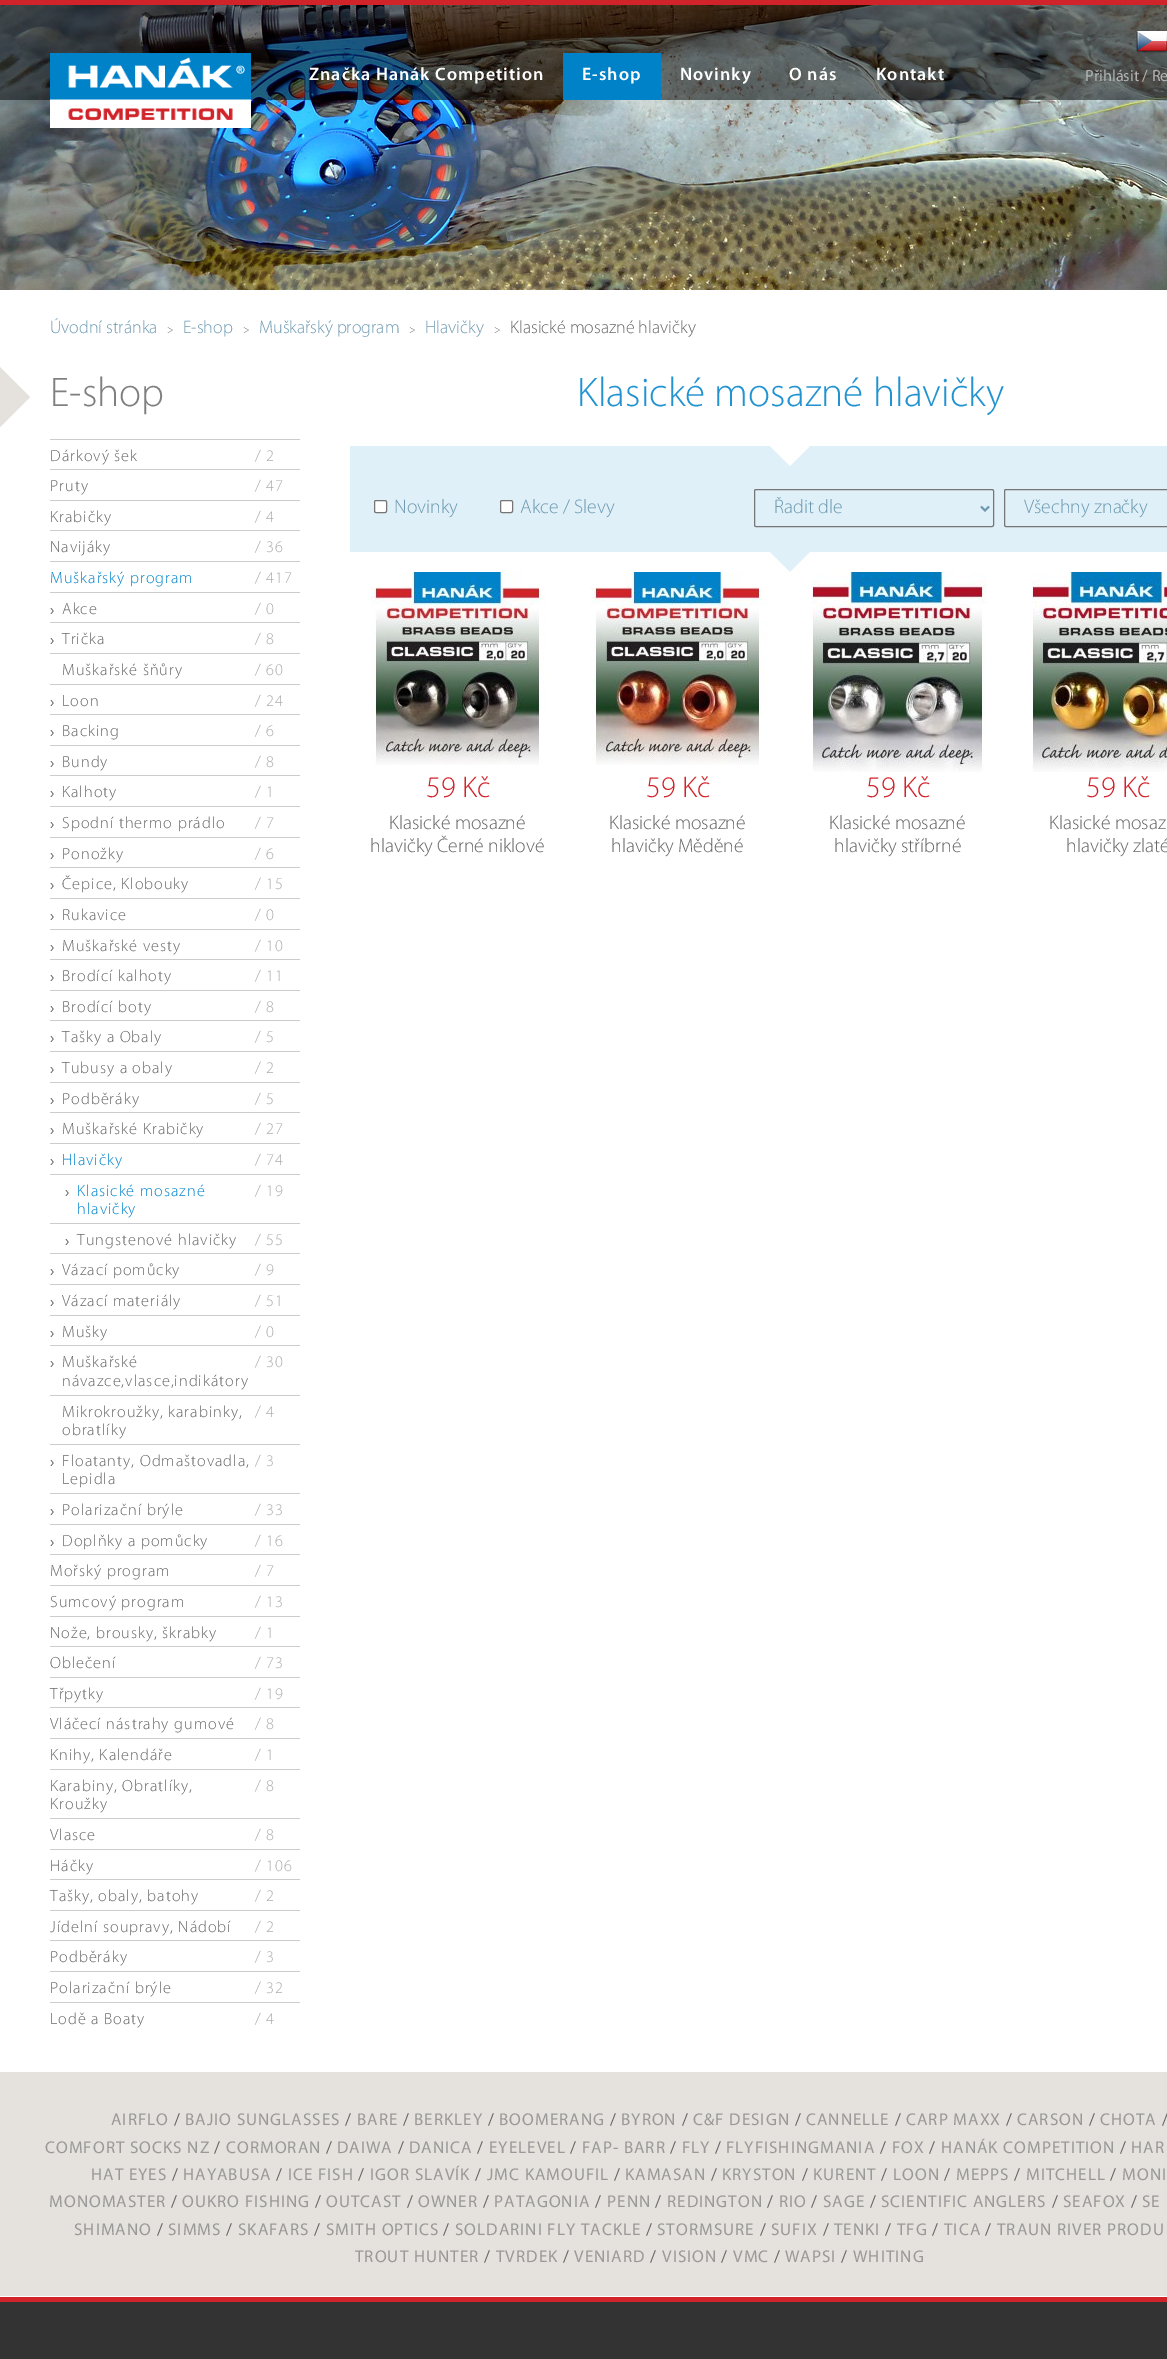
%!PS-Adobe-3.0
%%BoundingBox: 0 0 1167 2359
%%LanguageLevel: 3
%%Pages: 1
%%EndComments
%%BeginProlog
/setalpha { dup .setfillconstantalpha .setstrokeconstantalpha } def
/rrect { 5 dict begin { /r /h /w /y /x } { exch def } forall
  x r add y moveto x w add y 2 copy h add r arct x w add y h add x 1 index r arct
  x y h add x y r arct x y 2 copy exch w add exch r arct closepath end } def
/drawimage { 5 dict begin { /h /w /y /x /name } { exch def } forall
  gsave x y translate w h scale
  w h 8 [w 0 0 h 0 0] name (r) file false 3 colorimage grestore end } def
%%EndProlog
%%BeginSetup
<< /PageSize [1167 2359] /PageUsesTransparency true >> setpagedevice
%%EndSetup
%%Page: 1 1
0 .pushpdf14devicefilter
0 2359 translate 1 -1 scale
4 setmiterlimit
1 setgray
0 0 1167 2359 rectfill
(images/3.raw) 0 5 1167 285 drawimage
0.5 setalpha
0 setgray
0 5 1167 95 rectfill
1 setalpha
0.82 0.137 0.165 setrgbcolor
0 0 1167 5 rectfill
(images/1.raw) 1136 30 31 24 drawimage
(images/2.raw) 50 53 201 75 drawimage
0 0.51 0.788 setrgbcolor
563 53 98 47 rectfill
(images/4.raw) 0 367 30 60 drawimage
0.8 setgray
50 439 250 1 rectfill
50 469 250 1 rectfill
50 500 250 1 rectfill
50 530 250 1 rectfill
50 561 250 1 rectfill
50 1554 250 1 rectfill
50 592 250 1 rectfill
50 622 250 1 rectfill
(images/5.raw) 50 608 4 6 drawimage
50 653 250 1 rectfill
(images/5.raw) 50 638 4 6 drawimage
50 684 250 1 rectfill
50 714 250 1 rectfill
(images/5.raw) 50 700 4 6 drawimage
50 745 250 1 rectfill
(images/5.raw) 50 730 4 6 drawimage
50 775 250 1 rectfill
(images/5.raw) 50 761 4 6 drawimage
50 806 250 1 rectfill
(images/5.raw) 50 791 4 6 drawimage
50 837 250 1 rectfill
(images/5.raw) 50 822 4 6 drawimage
50 867 250 1 rectfill
(images/5.raw) 50 853 4 6 drawimage
50 898 250 1 rectfill
(images/5.raw) 50 883 4 6 drawimage
50 929 250 1 rectfill
(images/5.raw) 50 914 4 6 drawimage
50 959 250 1 rectfill
(images/5.raw) 50 945 4 6 drawimage
50 990 250 1 rectfill
(images/5.raw) 50 975 4 6 drawimage
50 1020 250 1 rectfill
(images/5.raw) 50 1006 4 6 drawimage
50 1051 250 1 rectfill
(images/5.raw) 50 1036 4 6 drawimage
50 1082 250 1 rectfill
(images/5.raw) 50 1067 4 6 drawimage
50 1112 250 1 rectfill
(images/5.raw) 50 1098 4 6 drawimage
50 1143 250 1 rectfill
(images/5.raw) 50 1128 4 6 drawimage
50 1253 250 1 rectfill
(images/5.raw) 50 1159 4 6 drawimage
50 1174 250 1 rectfill
50 1223 250 1 rectfill
(images/5.raw) 65 1190 4 6 drawimage
(images/5.raw) 65 1239 4 6 drawimage
50 1284 250 1 rectfill
(images/5.raw) 50 1269 4 6 drawimage
50 1315 250 1 rectfill
(images/5.raw) 50 1300 4 6 drawimage
50 1345 250 1 rectfill
(images/5.raw) 50 1331 4 6 drawimage
50 1395 250 1 rectfill
(images/5.raw) 50 1361 4 6 drawimage
50 1444 250 1 rectfill
50 1493 250 1 rectfill
(images/5.raw) 50 1460 4 6 drawimage
50 1524 250 1 rectfill
(images/5.raw) 50 1509 4 6 drawimage
(images/5.raw) 50 1540 4 6 drawimage
50 1585 250 1 rectfill
50 1616 250 1 rectfill
50 1646 250 1 rectfill
50 1677 250 1 rectfill
50 1707 250 1 rectfill
50 1738 250 1 rectfill
50 1769 250 1 rectfill
50 1818 250 1 rectfill
50 1849 250 1 rectfill
50 1879 250 1 rectfill
50 1910 250 1 rectfill
50 1940 250 1 rectfill
50 1971 250 1 rectfill
50 2002 250 1 rectfill
(images/6.raw) 770 552 40 20 drawimage
0.878 0.941 0.973 setrgbcolor
350 446 817 106 rectfill
(images/7.raw) 770 446 40 20 drawimage
1 setgray
374.5 500.5 12 12 1.5 rrect gsave fill grestore
0.463 setgray
stroke
1 setgray
500.5 500.5 12 12 1.5 rrect gsave fill grestore
0.463 setgray
stroke
754.5 489.5 239 37 1.5 rrect stroke
0.427 0.6 0.694 setrgbcolor
2 setlinewidth
newpath 981 506.5 moveto 985 510.5 lineto 989 506.5 lineto stroke
0.463 setgray
1 setlinewidth
1004.5 489.5 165 37 1.5 rrect stroke
(images/8.raw) 371 572 176 193 drawimage
(images/9.raw) 591 572 176 193 drawimage
(images/10.raw) 811 572 176 200 drawimage
(images/11.raw) 1031 572 136 200 drawimage
0.898 0.882 0.863 setrgbcolor
0 2072 1167 224 rectfill
0.2 setgray
0 2302 1167 57 rectfill
0.82 0.137 0.165 setrgbcolor
0 2297 1167 5 rectfill
/Myriad-SemiBold [18 0 0 -18 0 0] selectfont
1 setgray
309 80 moveto 1 0 (Značka Hanák Competition) ashow
582 80 moveto 1 0 (E-shop) ashow
680 80 moveto 1 0 (Novinky) ashow
789 80 moveto 1 0 (O nás) ashow
876 80 moveto 1 0 (Kontakt) ashow
/Myriad-Regular [16.25 0 0 -16.25 0 0] selectfont
0.702 setgray
1085 81 moveto (Přihlásit / Re) show
/Myriad-Light [18 0 0 -18 0 0] selectfont
0.427 0.6 0.694 setrgbcolor
50 333 moveto (Úvodní stránka) show
/Myriad-Light [11 0 0 -11 0 0] selectfont
0.4 setgray
167 333 moveto (>) show
/Myriad-Light [18 0 0 -18 0 0] selectfont
0.427 0.6 0.694 setrgbcolor
183 333 moveto (E-shop) show
/Myriad-Light [11 0 0 -11 0 0] selectfont
0.4 setgray
243 333 moveto (>) show
/Myriad-Light [18 0 0 -18 0 0] selectfont
0.427 0.6 0.694 setrgbcolor
259 333 moveto (Muškařský program) show
/Myriad-Light [11 0 0 -11 0 0] selectfont
0.4 setgray
409 333 moveto (>) show
/Myriad-Light [18 0 0 -18 0 0] selectfont
0.427 0.6 0.694 setrgbcolor
425 333 moveto (Hlavičky) show
/Myriad-Light [11 0 0 -11 0 0] selectfont
0.4 setgray
494 333 moveto (>) show
/Myriad-Light [18 0 0 -18 0 0] selectfont
510 333 moveto (Klasické mosazné hlavičky) show
/Myriad-Light [41.4 0 0 -41.4 0 0] selectfont
0.502 setgray
50 406 moveto (E-shop) show
/Myriad-Light [16.25 0 0 -16.25 0 0] selectfont
0.4 setgray
50 461 moveto 1 0 (Dárkový šek) ashow
0.675 setgray
255 461 moveto 1 0 (/ 2) ashow
0.4 setgray
50 491 moveto 1 0 (Pruty) ashow
0.675 setgray
255 491 moveto 1 0 (/ 47) ashow
0.4 setgray
50 522 moveto 1 0 (Krabičky) ashow
0.675 setgray
255 522 moveto 1 0 (/ 4) ashow
0.4 setgray
50 552 moveto 1 0 (Navijáky) ashow
0.675 setgray
255 552 moveto 1 0 (/ 36) ashow
0 0.51 0.788 setrgbcolor
50 583 moveto 1 0 (Muškařský program) ashow
0.675 setgray
255 583 moveto 1 0 (/ 417) ashow
0.4 setgray
62 614 moveto 1 0 (Akce) ashow
0.675 setgray
255 614 moveto 1 0 (/ 0) ashow
0.4 setgray
62 644 moveto 1 0 (Trička) ashow
0.675 setgray
255 644 moveto 1 0 (/ 8) ashow
0.4 setgray
62 675 moveto 1 0 (Muškařské šňůry) ashow
0.675 setgray
255 675 moveto 1 0 (/ 60) ashow
0.4 setgray
62 706 moveto 1 0 (Loon) ashow
0.675 setgray
255 706 moveto 1 0 (/ 24) ashow
0.4 setgray
62 736 moveto 1 0 (Backing) ashow
0.675 setgray
255 736 moveto 1 0 (/ 6) ashow
0.4 setgray
62 767 moveto 1 0 (Bundy) ashow
0.675 setgray
255 767 moveto 1 0 (/ 8) ashow
0.4 setgray
62 797 moveto 1 0 (Kalhoty) ashow
0.675 setgray
255 797 moveto 1 0 (/ 1) ashow
0.4 setgray
62 828 moveto 1 0 (Spodní thermo prádlo) ashow
0.675 setgray
255 828 moveto 1 0 (/ 7) ashow
0.4 setgray
62 859 moveto 1 0 (Ponožky) ashow
0.675 setgray
255 859 moveto 1 0 (/ 6) ashow
0.4 setgray
62 889 moveto 1 0 (Čepice, Klobouky) ashow
0.675 setgray
255 889 moveto 1 0 (/ 15) ashow
0.4 setgray
62 920 moveto 1 0 (Rukavice) ashow
0.675 setgray
255 920 moveto 1 0 (/ 0) ashow
0.4 setgray
62 951 moveto 1 0 (Muškařské vesty) ashow
0.675 setgray
255 951 moveto 1 0 (/ 10) ashow
0.4 setgray
62 981 moveto 1 0 (Brodící kalhoty) ashow
0.675 setgray
255 981 moveto 1 0 (/ 11) ashow
0.4 setgray
62 1012 moveto 1 0 (Brodící boty) ashow
0.675 setgray
255 1012 moveto 1 0 (/ 8) ashow
0.4 setgray
62 1042 moveto 1 0 (Tašky a Obaly) ashow
0.675 setgray
255 1042 moveto 1 0 (/ 5) ashow
0.4 setgray
62 1073 moveto 1 0 (Tubusy a obaly) ashow
0.675 setgray
255 1073 moveto 1 0 (/ 2) ashow
0.4 setgray
62 1104 moveto 1 0 (Podběráky) ashow
0.675 setgray
255 1104 moveto 1 0 (/ 5) ashow
0.4 setgray
62 1134 moveto 1 0 (Muškařské Krabičky) ashow
0.675 setgray
255 1134 moveto 1 0 (/ 27) ashow
0 0.51 0.788 setrgbcolor
62 1165 moveto 1 0 (Hlavičky) ashow
0.675 setgray
255 1165 moveto 1 0 (/ 74) ashow
0 0.51 0.788 setrgbcolor
77 1196 moveto 1 0 (Klasické mosazné) ashow
77 1214 moveto 1 0 (hlavičky) ashow
0.675 setgray
255 1196 moveto 1 0 (/ 19) ashow
0.4 setgray
77 1245 moveto 1 0 (Tungstenové hlavičky) ashow
0.675 setgray
255 1245 moveto 1 0 (/ 55) ashow
0.4 setgray
62 1275 moveto 1 0 (Vázací pomůcky) ashow
0.675 setgray
255 1275 moveto 1 0 (/ 9) ashow
0.4 setgray
62 1306 moveto 1 0 (Vázací materiály) ashow
0.675 setgray
255 1306 moveto 1 0 (/ 51) ashow
0.4 setgray
62 1337 moveto 1 0 (Mušky) ashow
0.675 setgray
255 1337 moveto 1 0 (/ 0) ashow
0.4 setgray
62 1367 moveto 1 0 (Muškařské) ashow
62 1386 moveto 1 0 (návazce,vlasce,indikátory) ashow
0.675 setgray
255 1367 moveto 1 0 (/ 30) ashow
0.4 setgray
62 1417 moveto 1 0 (Mikrokroužky, karabinky,) ashow
62 1435 moveto 1 0 (obratlíky) ashow
0.675 setgray
255 1417 moveto 1 0 (/ 4) ashow
0.4 setgray
62 1466 moveto 1 0 (Floatanty, Odmaštovadla,) ashow
62 1484 moveto 1 0 (Lepidla) ashow
0.675 setgray
255 1466 moveto 1 0 (/ 3) ashow
0.4 setgray
62 1515 moveto 1 0 (Polarizační brýle) ashow
0.675 setgray
255 1515 moveto 1 0 (/ 33) ashow
0.4 setgray
62 1546 moveto 1 0 (Doplňky a pomůcky) ashow
0.675 setgray
255 1546 moveto 1 0 (/ 16) ashow
0.4 setgray
50 1576 moveto 1 0 (Mořský program) ashow
0.675 setgray
255 1576 moveto 1 0 (/ 7) ashow
0.4 setgray
50 1607 moveto 1 0 (Sumcový program) ashow
0.675 setgray
255 1607 moveto 1 0 (/ 13) ashow
0.4 setgray
50 1638 moveto 1 0 (Nože, brousky, škrabky) ashow
0.675 setgray
255 1638 moveto 1 0 (/ 1) ashow
0.4 setgray
50 1668 moveto 1 0 (Oblečení) ashow
0.675 setgray
255 1668 moveto 1 0 (/ 73) ashow
0.4 setgray
50 1699 moveto 1 0 (Třpytky) ashow
0.675 setgray
255 1699 moveto 1 0 (/ 19) ashow
0.4 setgray
50 1729 moveto 1 0 (Vláčecí nástrahy gumové) ashow
0.675 setgray
255 1729 moveto 1 0 (/ 8) ashow
0.4 setgray
50 1760 moveto 1 0 (Knihy, Kalendáře) ashow
0.675 setgray
255 1760 moveto 1 0 (/ 1) ashow
0.4 setgray
50 1791 moveto 1 0 (Karabiny, Obratlíky,) ashow
50 1809 moveto 1 0 (Kroužky) ashow
0.675 setgray
255 1791 moveto 1 0 (/ 8) ashow
0.4 setgray
50 1840 moveto 1 0 (Vlasce) ashow
0.675 setgray
255 1840 moveto 1 0 (/ 8) ashow
0.4 setgray
50 1871 moveto 1 0 (Háčky) ashow
0.675 setgray
255 1871 moveto 1 0 (/ 106) ashow
0.4 setgray
50 1901 moveto 1 0 (Tašky, obaly, batohy) ashow
0.675 setgray
255 1901 moveto 1 0 (/ 2) ashow
0.4 setgray
50 1932 moveto 1 0 (Jídelní soupravy, Nádobí) ashow
0.675 setgray
255 1932 moveto 1 0 (/ 2) ashow
0.4 setgray
50 1962 moveto 1 0 (Podběráky) ashow
0.675 setgray
255 1962 moveto 1 0 (/ 3) ashow
0.4 setgray
50 1993 moveto 1 0 (Polarizační brýle) ashow
0.675 setgray
255 1993 moveto 1 0 (/ 32) ashow
0.4 setgray
50 2024 moveto 1 0 (Lodě a Boaty) ashow
0.675 setgray
255 2024 moveto 1 0 (/ 4) ashow
/Myriad-Light [41.4 0 0 -41.4 0 0] selectfont
0.133 0.576 0.816 setrgbcolor
577 406 moveto (Klasické mosazné hlavičky) show
/Myriad-Light [19.75 0 0 -19.75 0 0] selectfont
0.427 0.6 0.694 setrgbcolor
394 513 moveto (Novinky) show
520 513 moveto (Akce / Slevy) show
gsave
774 497 188 22 rectclip
774 513 moveto (Řadit dle) show
grestore
1024 513 moveto (Všechny značky) show
/Myriad-Light [30 0 0 -30 0 0] selectfont
0.82 0.137 0.165 setrgbcolor
426 797 moveto (59 Kč) show
/Myriad-Light [19.75 0 0 -19.75 0 0] selectfont
0.4 setgray
389 829 moveto (Klasické mosazné) show
370 852 moveto (hlavičky Černé niklové) show
/Myriad-Light [30 0 0 -30 0 0] selectfont
0.82 0.137 0.165 setrgbcolor
646 797 moveto (59 Kč) show
/Myriad-Light [19.75 0 0 -19.75 0 0] selectfont
0.4 setgray
609 829 moveto (Klasické mosazné) show
611 852 moveto (hlavičky Měděné) show
/Myriad-Light [30 0 0 -30 0 0] selectfont
0.82 0.137 0.165 setrgbcolor
866 797 moveto (59 Kč) show
/Myriad-Light [19.75 0 0 -19.75 0 0] selectfont
0.4 setgray
829 829 moveto (Klasické mosazné) show
834 852 moveto (hlavičky stříbrné) show
/Myriad-Light [30 0 0 -30 0 0] selectfont
0.82 0.137 0.165 setrgbcolor
1086 797 moveto (59 Kč) show
/Myriad-Light [19.75 0 0 -19.75 0 0] selectfont
0.4 setgray
1049 829 moveto (Klasické mosaz) show
1066 852 moveto (hlavičky zlaté) show
/Myriad-Regular [17.1 0 0 -17.1 0 0] selectfont
0.6 setgray
111 2125 moveto 1 0 (AIRFLO) ashow
0.4 setgray
174 2125 moveto 1 0 (/) ashow
0.6 setgray
185 2125 moveto 1 0 (BAJIO SUNGLASSES) ashow
0.4 setgray
345 2125 moveto 1 0 (/) ashow
0.6 setgray
357 2125 moveto 1 0 (BARE) ashow
0.4 setgray
403 2125 moveto 1 0 (/) ashow
0.6 setgray
414 2125 moveto 1 0 (BERKLEY) ashow
0.4 setgray
488 2125 moveto 1 0 (/) ashow
0.6 setgray
499 2125 moveto 1 0 (BOOMERANG) ashow
0.4 setgray
610 2125 moveto 1 0 (/) ashow
0.6 setgray
621 2125 moveto 1 0 (BYRON) ashow
0.4 setgray
682 2125 moveto 1 0 (/) ashow
0.6 setgray
693 2125 moveto 1 0 (C&F DESIGN) ashow
0.4 setgray
795 2125 moveto 1 0 (/) ashow
0.6 setgray
806 2125 moveto 1 0 (CANNELLE) ashow
0.4 setgray
895 2125 moveto 1 0 (/) ashow
0.6 setgray
906 2125 moveto 1 0 (CARP MAXX) ashow
0.4 setgray
1006 2125 moveto 1 0 (/) ashow
0.6 setgray
1017 2125 moveto 1 0 (CARSON) ashow
0.4 setgray
1089 2125 moveto 1 0 (/) ashow
0.6 setgray
1100 2125 moveto 1 0 (CHOTA) ashow
0.4 setgray
1162 2125 moveto 1 0 (/) ashow
0.6 setgray
45 2153 moveto 1 0 (COMFORT SOCKS NZ) ashow
0.4 setgray
214 2153 moveto 1 0 (/) ashow
0.6 setgray
226 2153 moveto 1 0 (CORMORAN) ashow
0.4 setgray
326 2153 moveto 1 0 (/) ashow
0.6 setgray
337 2153 moveto 1 0 (DAIWA) ashow
0.4 setgray
398 2153 moveto 1 0 (/) ashow
0.6 setgray
409 2153 moveto 1 0 (DANICA) ashow
0.4 setgray
477 2153 moveto 1 0 (/) ashow
0.6 setgray
489 2153 moveto 1 0 (EYELEVEL) ashow
0.4 setgray
570 2153 moveto 1 0 (/) ashow
0.6 setgray
582 2153 moveto 1 0 (FAP- BARR) ashow
0.4 setgray
670 2153 moveto 1 0 (/) ashow
0.6 setgray
682 2153 moveto 1 0 (FLY) ashow
0.4 setgray
715 2153 moveto 1 0 (/) ashow
0.6 setgray
726 2153 moveto 1 0 (FLYFISHINGMANIA) ashow
0.4 setgray
880 2153 moveto 1 0 (/) ashow
0.6 setgray
892 2153 moveto 1 0 (FOX) ashow
0.4 setgray
929 2153 moveto 1 0 (/) ashow
0.6 setgray
941 2153 moveto 1 0 (HANÁK COMPETITION) ashow
0.4 setgray
1120 2153 moveto 1 0 (/) ashow
0.6 setgray
1131 2153 moveto 1 0 (HAR) ashow
91 2180 moveto 1 0 (HAT EYES) ashow
0.4 setgray
172 2180 moveto 1 0 (/) ashow
0.6 setgray
183 2180 moveto 1 0 (HAYABUSA) ashow
0.4 setgray
276 2180 moveto 1 0 (/) ashow
0.6 setgray
288 2180 moveto 1 0 (ICE FISH) ashow
0.4 setgray
358 2180 moveto 1 0 (/) ashow
0.6 setgray
370 2180 moveto 1 0 (IGOR SLAVÍK) ashow
0.4 setgray
475 2180 moveto 1 0 (/) ashow
0.6 setgray
487 2180 moveto 1 0 (JMC KAMOUFIL) ashow
0.4 setgray
614 2180 moveto 1 0 (/) ashow
0.6 setgray
625 2180 moveto 1 0 (KAMASAN) ashow
0.4 setgray
711 2180 moveto 1 0 (/) ashow
0.6 setgray
722 2180 moveto 1 0 (KRYSTON) ashow
0.4 setgray
802 2180 moveto 1 0 (/) ashow
0.6 setgray
813 2180 moveto 1 0 (KURENT) ashow
0.4 setgray
881 2180 moveto 1 0 (/) ashow
0.6 setgray
893 2180 moveto 1 0 (LOON) ashow
0.4 setgray
944 2180 moveto 1 0 (/) ashow
0.6 setgray
956 2180 moveto 1 0 (MEPPS) ashow
0.4 setgray
1014 2180 moveto 1 0 (/) ashow
0.6 setgray
1026 2180 moveto 1 0 (MITCHELL) ashow
0.4 setgray
1110 2180 moveto 1 0 (/) ashow
0.6 setgray
1122 2180 moveto 1 0 (MONI) ashow
49 2207 moveto 1 0 (MONOMASTER) ashow
0.4 setgray
171 2207 moveto 1 0 (/) ashow
0.6 setgray
182 2207 moveto 1 0 (OUKRO FISHING) ashow
0.4 setgray
315 2207 moveto 1 0 (/) ashow
0.6 setgray
326 2207 moveto 1 0 (OUTCAST) ashow
0.4 setgray
407 2207 moveto 1 0 (/) ashow
0.6 setgray
418 2207 moveto 1 0 (OWNER) ashow
0.4 setgray
483 2207 moveto 1 0 (/) ashow
0.6 setgray
494 2207 moveto 1 0 (PATAGONIA) ashow
0.4 setgray
595 2207 moveto 1 0 (/) ashow
0.6 setgray
607 2207 moveto 1 0 (PENN) ashow
0.4 setgray
655 2207 moveto 1 0 (/) ashow
0.6 setgray
667 2207 moveto 1 0 (REDINGTON) ashow
0.4 setgray
767 2207 moveto 1 0 (/) ashow
0.6 setgray
779 2207 moveto 1 0 (RIO) ashow
0.4 setgray
811 2207 moveto 1 0 (/) ashow
0.6 setgray
823 2207 moveto 1 0 (SAGE) ashow
0.4 setgray
870 2207 moveto 1 0 (/) ashow
0.6 setgray
881 2207 moveto 1 0 (SCIENTIFIC ANGLERS) ashow
0.4 setgray
1052 2207 moveto 1 0 (/) ashow
0.6 setgray
1063 2207 moveto 1 0 (SEAFOX) ashow
0.4 setgray
1131 2207 moveto 1 0 (/) ashow
0.6 setgray
1142 2207 moveto 1 0 (SE) ashow
74 2235 moveto 1 0 (SHIMANO) ashow
0.4 setgray
157 2235 moveto 1 0 (/) ashow
0.6 setgray
168 2235 moveto 1 0 (SIMMS) ashow
0.4 setgray
226 2235 moveto 1 0 (/) ashow
0.6 setgray
238 2235 moveto 1 0 (SKAFARS) ashow
0.4 setgray
314 2235 moveto 1 0 (/) ashow
0.6 setgray
326 2235 moveto 1 0 (SMITH OPTICS) ashow
0.4 setgray
443 2235 moveto 1 0 (/) ashow
0.6 setgray
455 2235 moveto 1 0 (SOLDARINI FLY TACKLE) ashow
0.4 setgray
646 2235 moveto 1 0 (/) ashow
0.6 setgray
657 2235 moveto 1 0 (STORMSURE) ashow
0.4 setgray
760 2235 moveto 1 0 (/) ashow
0.6 setgray
771 2235 moveto 1 0 (SUFIX) ashow
0.4 setgray
823 2235 moveto 1 0 (/) ashow
0.6 setgray
834 2235 moveto 1 0 (TENKI) ashow
0.4 setgray
885 2235 moveto 1 0 (/) ashow
0.6 setgray
897 2235 moveto 1 0 (TFG) ashow
0.4 setgray
932 2235 moveto 1 0 (/) ashow
0.6 setgray
944 2235 moveto 1 0 (TICA) ashow
0.4 setgray
985 2235 moveto 1 0 (/) ashow
0.6 setgray
997 2235 moveto 1 0 (TRAUN RIVER PRODU) ashow
355 2262 moveto 1 0 (TROUT HUNTER) ashow
0.4 setgray
484 2262 moveto 1 0 (/) ashow
0.6 setgray
496 2262 moveto 1 0 (TVRDEK) ashow
0.4 setgray
563 2262 moveto 1 0 (/) ashow
0.6 setgray
574 2262 moveto 1 0 (VENIARD) ashow
0.4 setgray
650 2262 moveto 1 0 (/) ashow
0.6 setgray
662 2262 moveto 1 0 (VISION) ashow
0.4 setgray
721 2262 moveto 1 0 (/) ashow
0.6 setgray
733 2262 moveto 1 0 (VMC) ashow
0.4 setgray
774 2262 moveto 1 0 (/) ashow
0.6 setgray
785 2262 moveto 1 0 (WAPSI) ashow
0.4 setgray
841 2262 moveto 1 0 (/) ashow
0.6 setgray
853 2262 moveto 1 0 (WHITING) ashow
.poppdf14devicefilter showpage
%%EOF
